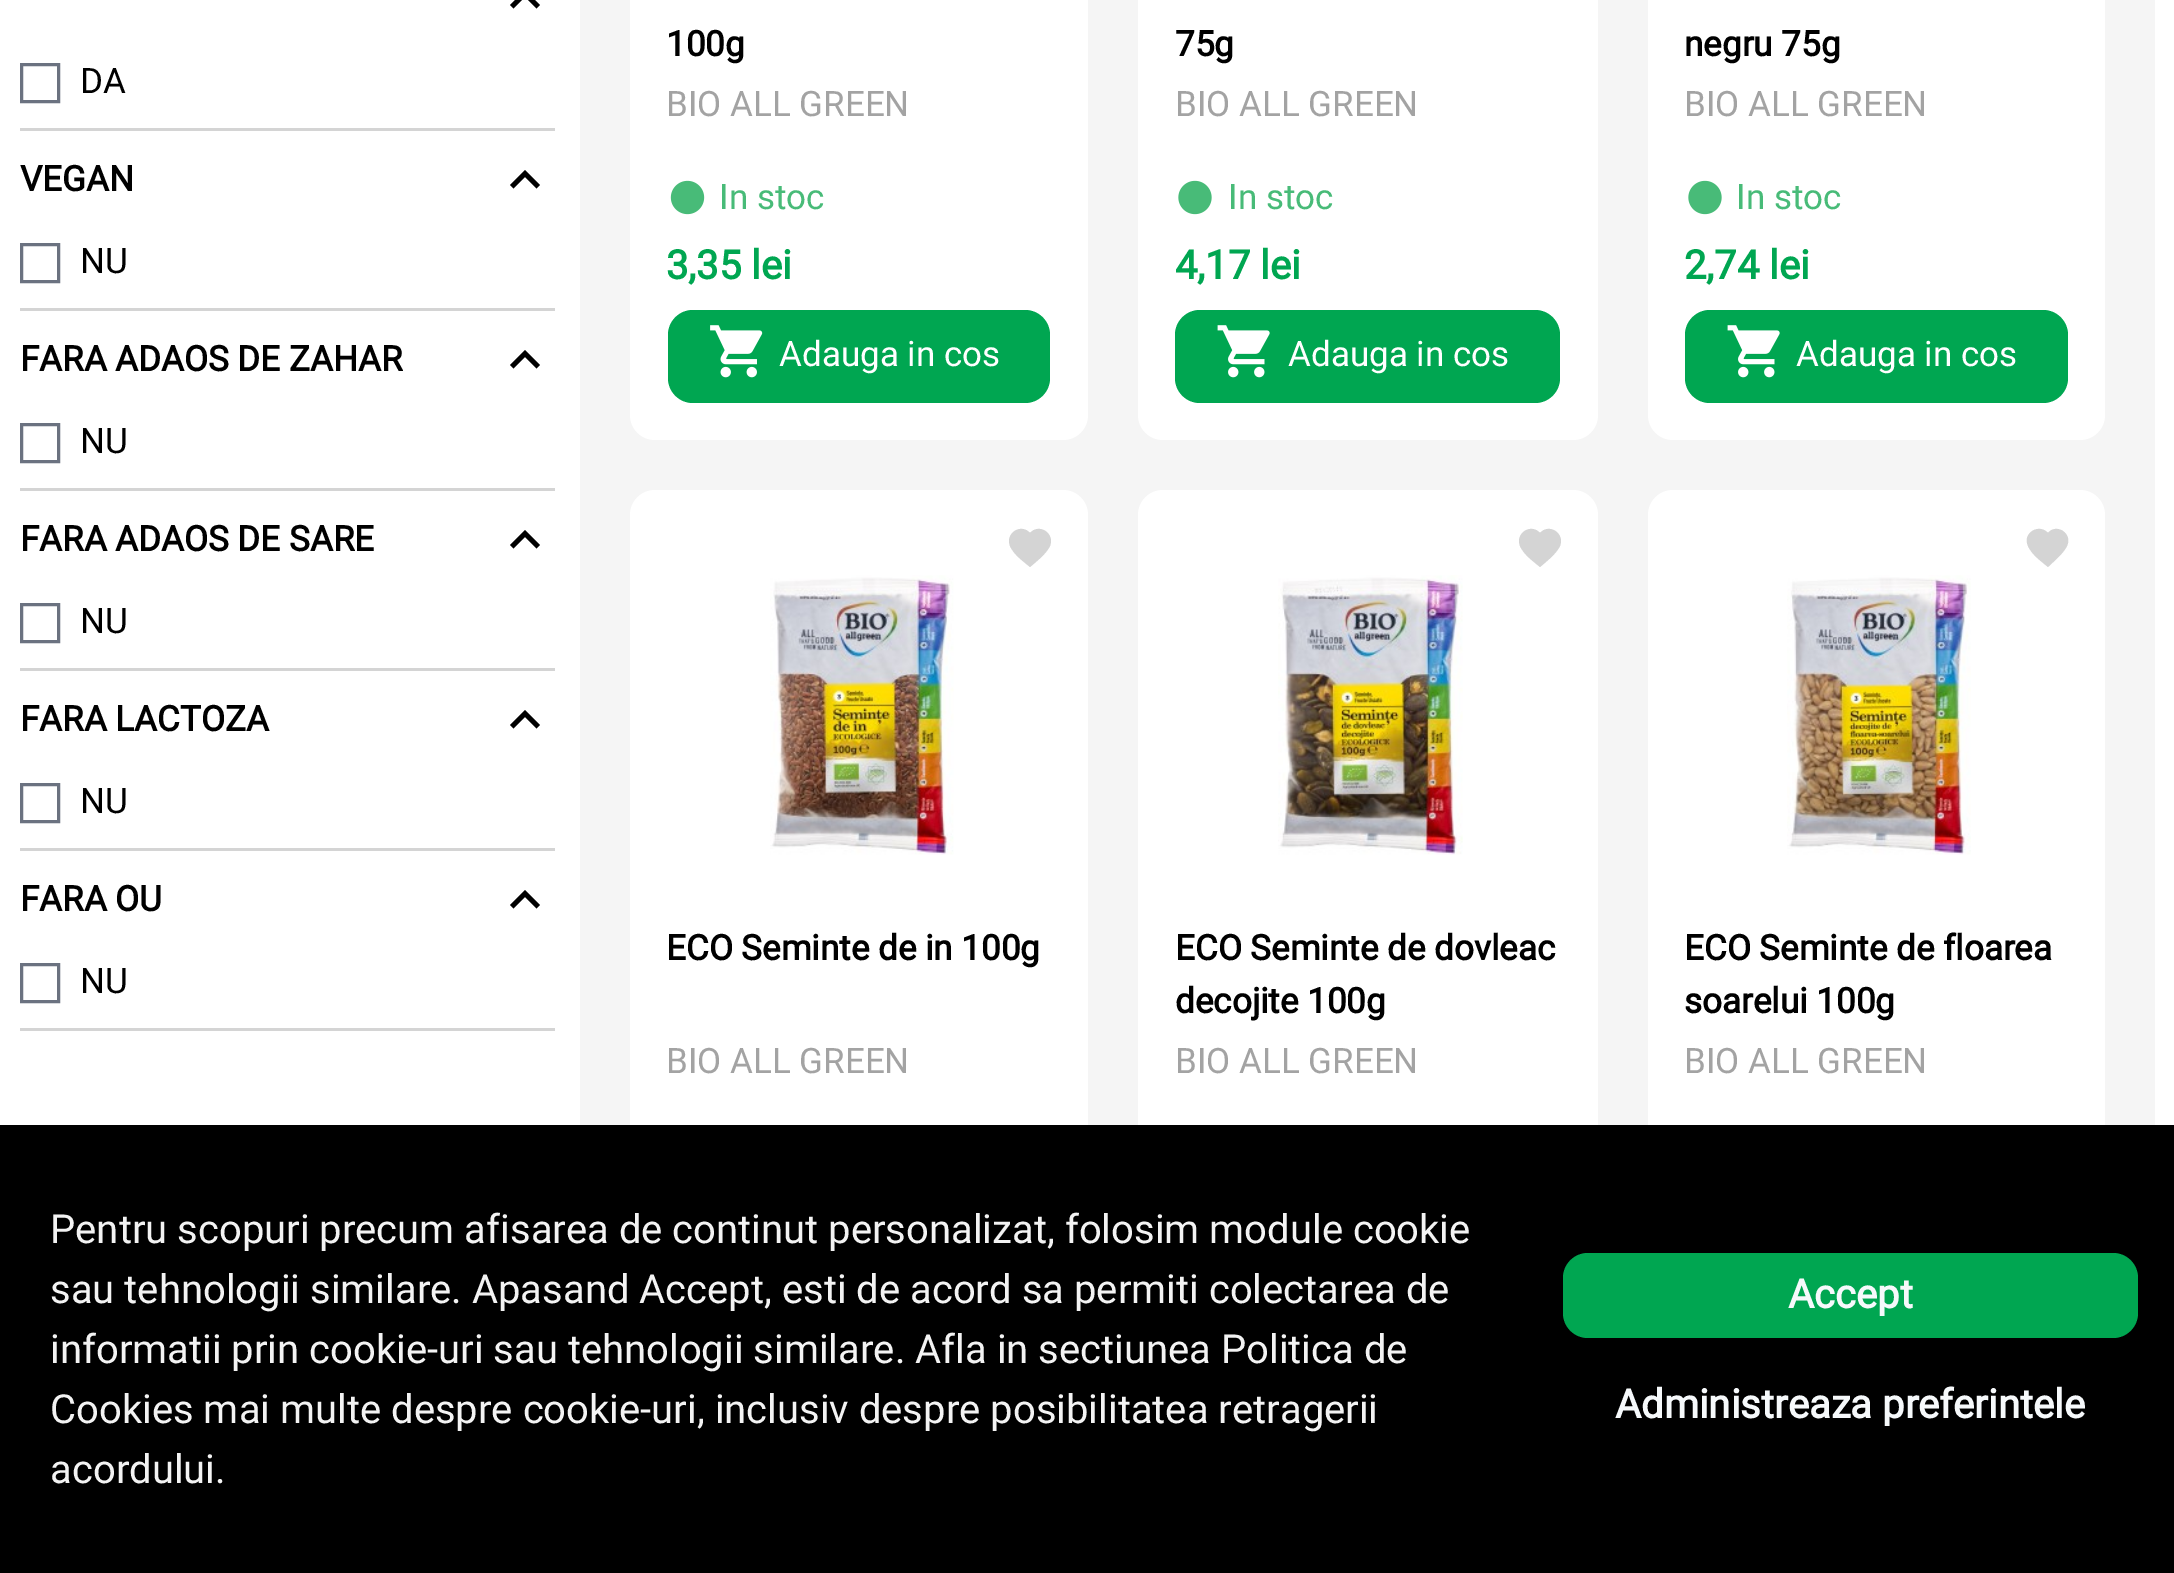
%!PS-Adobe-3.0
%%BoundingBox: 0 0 2174 1573
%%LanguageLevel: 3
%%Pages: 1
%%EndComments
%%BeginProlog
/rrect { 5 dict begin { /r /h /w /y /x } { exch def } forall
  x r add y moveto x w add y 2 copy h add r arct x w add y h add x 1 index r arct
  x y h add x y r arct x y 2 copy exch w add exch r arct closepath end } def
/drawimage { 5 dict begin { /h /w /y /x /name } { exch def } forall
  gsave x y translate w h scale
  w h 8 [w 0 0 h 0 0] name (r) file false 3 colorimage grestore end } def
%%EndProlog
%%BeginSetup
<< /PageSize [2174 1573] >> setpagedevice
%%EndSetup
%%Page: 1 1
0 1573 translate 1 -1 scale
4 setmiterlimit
1 setgray
0 0 2174 1573 rectfill
0.831 setgray
20 128 535 3 rectfill
0 setgray
newpath 525 -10 moveto 510 5 lineto 513.5 8.5 lineto 525 -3 lineto 536.5 8.5 lineto 540 5 lineto closepath fill
0.42 0.447 0.502 setrgbcolor
3 setlinewidth
21.5 64.5 37 37 rectstroke
0.831 setgray
20 308 535 3 rectfill
0 setgray
newpath 525 170 moveto 510 185 lineto 513.5 188.5 lineto 525 177 lineto 536.5 188.5 lineto 540 185 lineto closepath fill
0.42 0.447 0.502 setrgbcolor
21.5 244.5 37 37 rectstroke
0.831 setgray
20 488 535 3 rectfill
0 setgray
newpath 525 350 moveto 510 365 lineto 513.5 368.5 lineto 525 357 lineto 536.5 368.5 lineto 540 365 lineto closepath fill
0.42 0.447 0.502 setrgbcolor
21.5 424.5 37 37 rectstroke
0.831 setgray
20 668 535 3 rectfill
0 setgray
newpath 525 530 moveto 510 545 lineto 513.5 548.5 lineto 525 537 lineto 536.5 548.5 lineto 540 545 lineto closepath fill
0.42 0.447 0.502 setrgbcolor
21.5 604.5 37 37 rectstroke
0.831 setgray
20 848 535 3 rectfill
0 setgray
newpath 525 710 moveto 510 725 lineto 513.5 728.5 lineto 525 717 lineto 536.5 728.5 lineto 540 725 lineto closepath fill
0.42 0.447 0.502 setrgbcolor
21.5 784.5 37 37 rectstroke
0.831 setgray
20 1028 535 3 rectfill
0 setgray
newpath 525 890 moveto 510 905 lineto 513.5 908.5 lineto 525 897 lineto 536.5 908.5 lineto 540 905 lineto closepath fill
0.42 0.447 0.502 setrgbcolor
21.5 964.5 37 37 rectstroke
0.961 setgray
580 0 1575 1125 rectfill
1 setgray
630 -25 458 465 25 rrect fill
(images/1.raw) 670 180 35 35 drawimage
0 0.651 0.318 setrgbcolor
668 310 382 93 25 rrect fill
(images/2.raw) 710 325 53 53 drawimage
1 setgray
1138 -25 460 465 25 rrect fill
(images/3.raw) 1178 180 34 35 drawimage
0 0.651 0.318 setrgbcolor
1175 310 385 93 25 rrect fill
(images/4.raw) 1217 325 53 53 drawimage
1 setgray
1648 -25 457 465 25 rrect fill
(images/3.raw) 1688 180 34 35 drawimage
0 0.651 0.318 setrgbcolor
1685 310 383 93 25 rrect fill
(images/4.raw) 1727 325 53 53 drawimage
1 setgray
630 490 458 905 25 rrect fill
0.831 setgray
newpath 1030 567 moveto 1023 561 1014 555 1010 546 curveto 1005 533 1021 523 1030 533 curveto 1039 523 1055 533 1050 546 curveto 1046 554 1037 561 1030 567 curveto closepath fill
(images/5.raw) 770 575 184 280 drawimage
1 setgray
1138 490 460 905 25 rrect fill
0.831 setgray
newpath 1540 567 moveto 1533 561 1524 555 1520 546 curveto 1515 533 1531 523 1540 533 curveto 1549 523 1565 533 1560 546 curveto 1556 554 1547 561 1540 567 curveto closepath fill
(images/6.raw) 1278 575 185 280 drawimage
1 setgray
1648 490 457 905 25 rrect fill
0.831 setgray
newpath 2048 567 moveto 2041 561 2032 555 2028 546 curveto 2022 533 2039 523 2048 533 curveto 2056 523 2073 533 2067 546 curveto 2063 554 2054 561 2048 567 curveto closepath fill
(images/7.raw) 1787 575 184 280 drawimage
0 setgray
0 1125 2174 448 rectfill
0 0.651 0.318 setrgbcolor
1563 1253 575 85 25 rrect fill
/Roboto-Regular [35 0 0 -35 0 0] selectfont
0 setgray
80 93 moveto (DA) show
/Roboto-Bold [35 0 0 -35 0 0] selectfont
20 191 moveto (VEGAN) show
/Roboto-Regular [35 0 0 -35 0 0] selectfont
80 273 moveto (NU) show
/Roboto-Bold [35 0 0 -35 0 0] selectfont
20 371 moveto (FARA ADAOS DE ZAHAR) show
/Roboto-Regular [35 0 0 -35 0 0] selectfont
80 453 moveto (NU) show
/Roboto-Bold [35 0 0 -35 0 0] selectfont
20 551 moveto (FARA ADAOS DE SARE) show
/Roboto-Regular [35 0 0 -35 0 0] selectfont
80 633 moveto (NU) show
/Roboto-Bold [35 0 0 -35 0 0] selectfont
20 731 moveto (FARA LACTOZA) show
/Roboto-Regular [35 0 0 -35 0 0] selectfont
80 813 moveto (NU) show
/Roboto-Bold [35 0 0 -35 0 0] selectfont
20 911 moveto (FARA OU) show
/Roboto-Regular [35 0 0 -35 0 0] selectfont
80 993 moveto (NU) show
/Roboto-Bold [35 0 0 -35 0 0] selectfont
666 56 moveto (100g) show
/Roboto-Regular [35 0 0 -35 0 0] selectfont
0.639 setgray
666 116 moveto (BIO ALL GREEN) show
0.282 0.733 0.471 setrgbcolor
719 209 moveto (In stoc) show
/Roboto-Bold [40 0 0 -40 0 0] selectfont
0 0.651 0.318 setrgbcolor
666 279 moveto (3,35 lei) show
/Roboto-Regular [35 0 0 -35 0 0] selectfont
1 setgray
779 366 moveto (Adauga in cos) show
/Roboto-Bold [35 0 0 -35 0 0] selectfont
0 setgray
1175 56 moveto (75g) show
/Roboto-Regular [35 0 0 -35 0 0] selectfont
0.639 setgray
1175 116 moveto (BIO ALL GREEN) show
0.282 0.733 0.471 setrgbcolor
1228 209 moveto (In stoc) show
/Roboto-Bold [40 0 0 -40 0 0] selectfont
0 0.651 0.318 setrgbcolor
1175 279 moveto (4,17 lei) show
/Roboto-Regular [35 0 0 -35 0 0] selectfont
1 setgray
1288 366 moveto (Adauga in cos) show
/Roboto-Bold [35 0 0 -35 0 0] selectfont
0 setgray
1684 56 moveto (negru 75g) show
/Roboto-Regular [35 0 0 -35 0 0] selectfont
0.639 setgray
1684 116 moveto (BIO ALL GREEN) show
0.282 0.733 0.471 setrgbcolor
1736 209 moveto (In stoc) show
/Roboto-Bold [40 0 0 -40 0 0] selectfont
0 0.651 0.318 setrgbcolor
1684 279 moveto (2,74 lei) show
/Roboto-Regular [35 0 0 -35 0 0] selectfont
1 setgray
1796 366 moveto (Adauga in cos) show
/Roboto-Bold [35 0 0 -35 0 0] selectfont
0 setgray
666 960 moveto (ECO Seminte de in 100g) show
/Roboto-Regular [35 0 0 -35 0 0] selectfont
0.639 setgray
666 1073 moveto (BIO ALL GREEN) show
/Roboto-Bold [35 0 0 -35 0 0] selectfont
0 setgray
1175 960 moveto (ECO Seminte de dovleac) show
1175 1013 moveto (decojite 100g) show
/Roboto-Regular [35 0 0 -35 0 0] selectfont
0.639 setgray
1175 1073 moveto (BIO ALL GREEN) show
/Roboto-Bold [35 0 0 -35 0 0] selectfont
0 setgray
1684 960 moveto (ECO Seminte de floarea) show
1684 1013 moveto (soarelui 100g) show
/Roboto-Regular [35 0 0 -35 0 0] selectfont
0.639 setgray
1684 1073 moveto (BIO ALL GREEN) show
/Roboto-Regular [40 0 0 -40 0 0] selectfont
0.953 setgray
50 1243 moveto (Pentru scopuri precum afisarea de continut personalizat, folosim module cookie) show
50 1303 moveto (sau tehnologii similare. Apasand Accept, esti de acord sa permiti colectarea de) show
50 1363 moveto (informatii prin cookie-uri sau tehnologii similare. Afla in sectiunea Politica de) show
50 1423 moveto (Cookies mai multe despre cookie-uri, inclusiv despre posibilitatea retragerii) show
50 1483 moveto (acordului.) show
/Roboto-Bold [40 0 0 -40 0 0] selectfont
0.965 0.976 0.984 setrgbcolor
1788 1308 moveto (Accept) show
1615 1418 moveto (Administreaza preferintele) show
showpage
%%EOF
